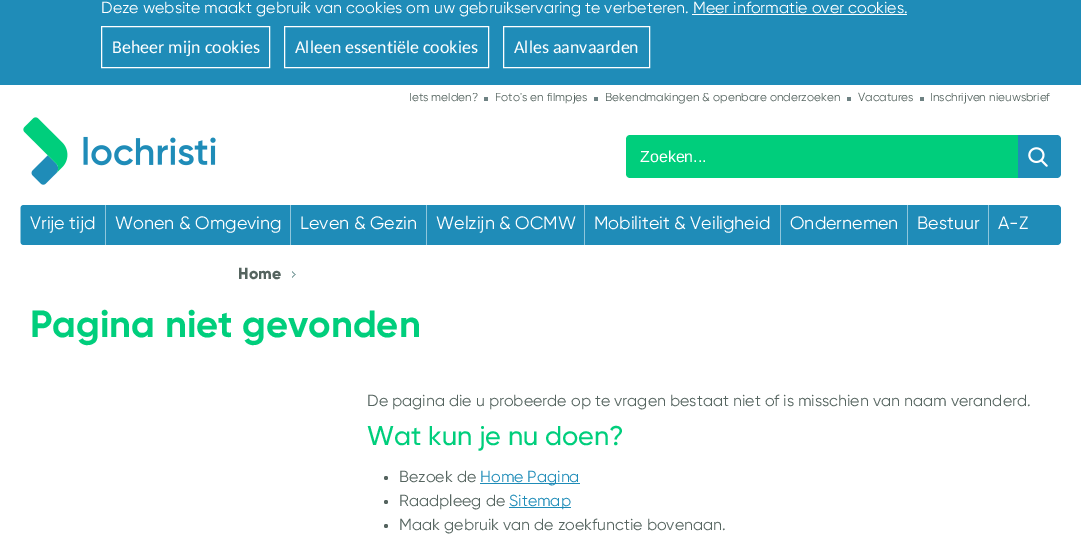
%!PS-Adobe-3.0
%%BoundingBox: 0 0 1081 538
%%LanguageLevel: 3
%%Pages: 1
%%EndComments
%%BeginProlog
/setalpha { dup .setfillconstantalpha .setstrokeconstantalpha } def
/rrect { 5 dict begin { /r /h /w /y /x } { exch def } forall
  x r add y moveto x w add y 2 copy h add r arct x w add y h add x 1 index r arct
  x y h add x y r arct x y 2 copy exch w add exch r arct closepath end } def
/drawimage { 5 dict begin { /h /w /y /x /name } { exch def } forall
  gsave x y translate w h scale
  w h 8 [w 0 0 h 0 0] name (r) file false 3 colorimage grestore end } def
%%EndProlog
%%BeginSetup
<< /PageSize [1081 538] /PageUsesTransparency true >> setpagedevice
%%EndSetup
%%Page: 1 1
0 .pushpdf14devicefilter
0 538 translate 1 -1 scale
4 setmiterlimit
1 setgray
0 0 1081 538 rectfill
0.122 0.549 0.722 setrgbcolor
0 0 1081 85 rectfill
1 setgray
692 14 215 1 rectfill
101.5 26.5 168 41 rectstroke
284.5 26.5 204 41 rectstroke
503.5 26.5 146 41 rectstroke
0.431 0.51 0.514 setrgbcolor
484 97 4 4 rectfill
594 97 4 4 rectfill
847 97 4 4 rectfill
920 97 4 4 rectfill
(images/1.raw) 23 117 193 68 drawimage
0 0.808 0.486 setrgbcolor
newpath 630 135 moveto 1018 135 lineto 1018 178 lineto 630 178 lineto 628 178 626 176 626 174 curveto 626 139 lineto 626 137 628 135 630 135 curveto closepath fill
0.122 0.549 0.722 setrgbcolor
newpath 1018 135 moveto 1057 135 lineto 1059 135 1061 137 1061 139 curveto 1061 174 lineto 1061 176 1059 178 1057 178 curveto 1018 178 lineto closepath fill
(images/2.raw) 1028 147 20 20 drawimage
20 205 1041 40 4 rrect fill
0.5 setalpha
1 setgray
20 205 1 40 rectfill
1 setalpha
0.561 0.776 0.863 setrgbcolor
105 205 1 40 rectfill
290 205 1 40 rectfill
426 205 1 40 rectfill
584 205 1 40 rectfill
780 205 1 40 rectfill
907 205 1 40 rectfill
988 205 1 40 rectfill
(images/3.raw) 292 271 4 7 drawimage
0.333 0.392 0.373 setrgbcolor
newpath 386 478 2 0 360 arc closepath fill
0.122 0.549 0.722 setrgbcolor
480 483 100 1 rectfill
0.333 0.392 0.373 setrgbcolor
newpath 386 502 2 0 360 arc closepath fill
0.122 0.549 0.722 setrgbcolor
509 507 62 1 rectfill
0.333 0.392 0.373 setrgbcolor
newpath 386 526 2 0 360 arc closepath fill
/Gilroy-Regular [16 0 0 -16 0 0] selectfont
1 setgray
101 13 moveto (Deze website maakt gebruik van cookies om uw gebruikservaring te verbeteren. Meer informatie over cookies.) show
/Carlito-Regular [18 0 0 -18 0 0] selectfont
112 53 moveto (Beheer mijn cookies) show
295 53 moveto (Alleen essentiële cookies) show
514 53 moveto (Alles aanvaarden) show
gsave
409 93 69 12 rectclip
/Gilroy-Regular [11.8 0 0 -11.8 0 0] selectfont
0.333 0.392 0.373 setrgbcolor
409 101 moveto (Iets melden?) show
grestore
gsave
483 93 105 12 rectclip
/Gilroy-Regular [11.8 0 0 -11.8 0 0] selectfont
0.333 0.392 0.373 setrgbcolor
495 101 moveto (Foto's en filmpjes) show
grestore
gsave
593 93 248 12 rectclip
/Gilroy-Regular [11.8 0 0 -11.8 0 0] selectfont
0.333 0.392 0.373 setrgbcolor
605 101 moveto (Bekendmakingen & openbare onderzoeken) show
grestore
/Gilroy-Regular [11.8 0 0 -11.8 0 0] selectfont
0.333 0.392 0.373 setrgbcolor
858 101 moveto (Vacatures) show
gsave
919 93 132 12 rectclip
930 101 moveto (Inschrijven nieuwsbrief) show
grestore
/LiberationSans-Regular [16 0 0 -16 0 0] selectfont
1 setgray
640 162 moveto (Zoeken...) show
/Gilroy-Regular [18 0 0 -18 0 0] selectfont
30 229 moveto (Vrije tijd) show
115 229 moveto (Wonen & Omgeving) show
300 229 moveto (Leven & Gezin) show
436 229 moveto (Welzijn & OCMW) show
594 229 moveto (Mobiliteit & Veiligheid) show
790 229 moveto (Ondernemen) show
917 229 moveto (Bestuur) show
998 229 moveto (A-Z) show
/Gilroy-ExtraBold [16 0 0 -16 0 0] selectfont
0.333 0.392 0.373 setrgbcolor
238 279 moveto (Home) show
/Gilroy-Bold [38 0 0 -38 0 0] selectfont
0 0.808 0.486 setrgbcolor
30 337 moveto (Pagina niet gevonden) show
/Gilroy-Regular [16 0 0 -16 0 0] selectfont
0.333 0.392 0.373 setrgbcolor
367 406 moveto (De pagina die u probeerde op te vragen bestaat niet of is misschien van naam veranderd.) show
/Gilroy-Medium [27 0 0 -27 0 0] selectfont
0 0.808 0.486 setrgbcolor
367 445 moveto (Wat kun je nu doen?) show
/Gilroy-Regular [16 0 0 -16 0 0] selectfont
0.333 0.392 0.373 setrgbcolor
399 482 moveto (Bezoek de) show
0.122 0.549 0.722 setrgbcolor
480 482 moveto (Home Pagina) show
0.333 0.392 0.373 setrgbcolor
399 506 moveto (Raadpleeg de) show
0.122 0.549 0.722 setrgbcolor
509 506 moveto (Sitemap) show
0.333 0.392 0.373 setrgbcolor
399 530 moveto (Maak gebruik van de zoekfunctie bovenaan.) show
.poppdf14devicefilter showpage
%%EOF
